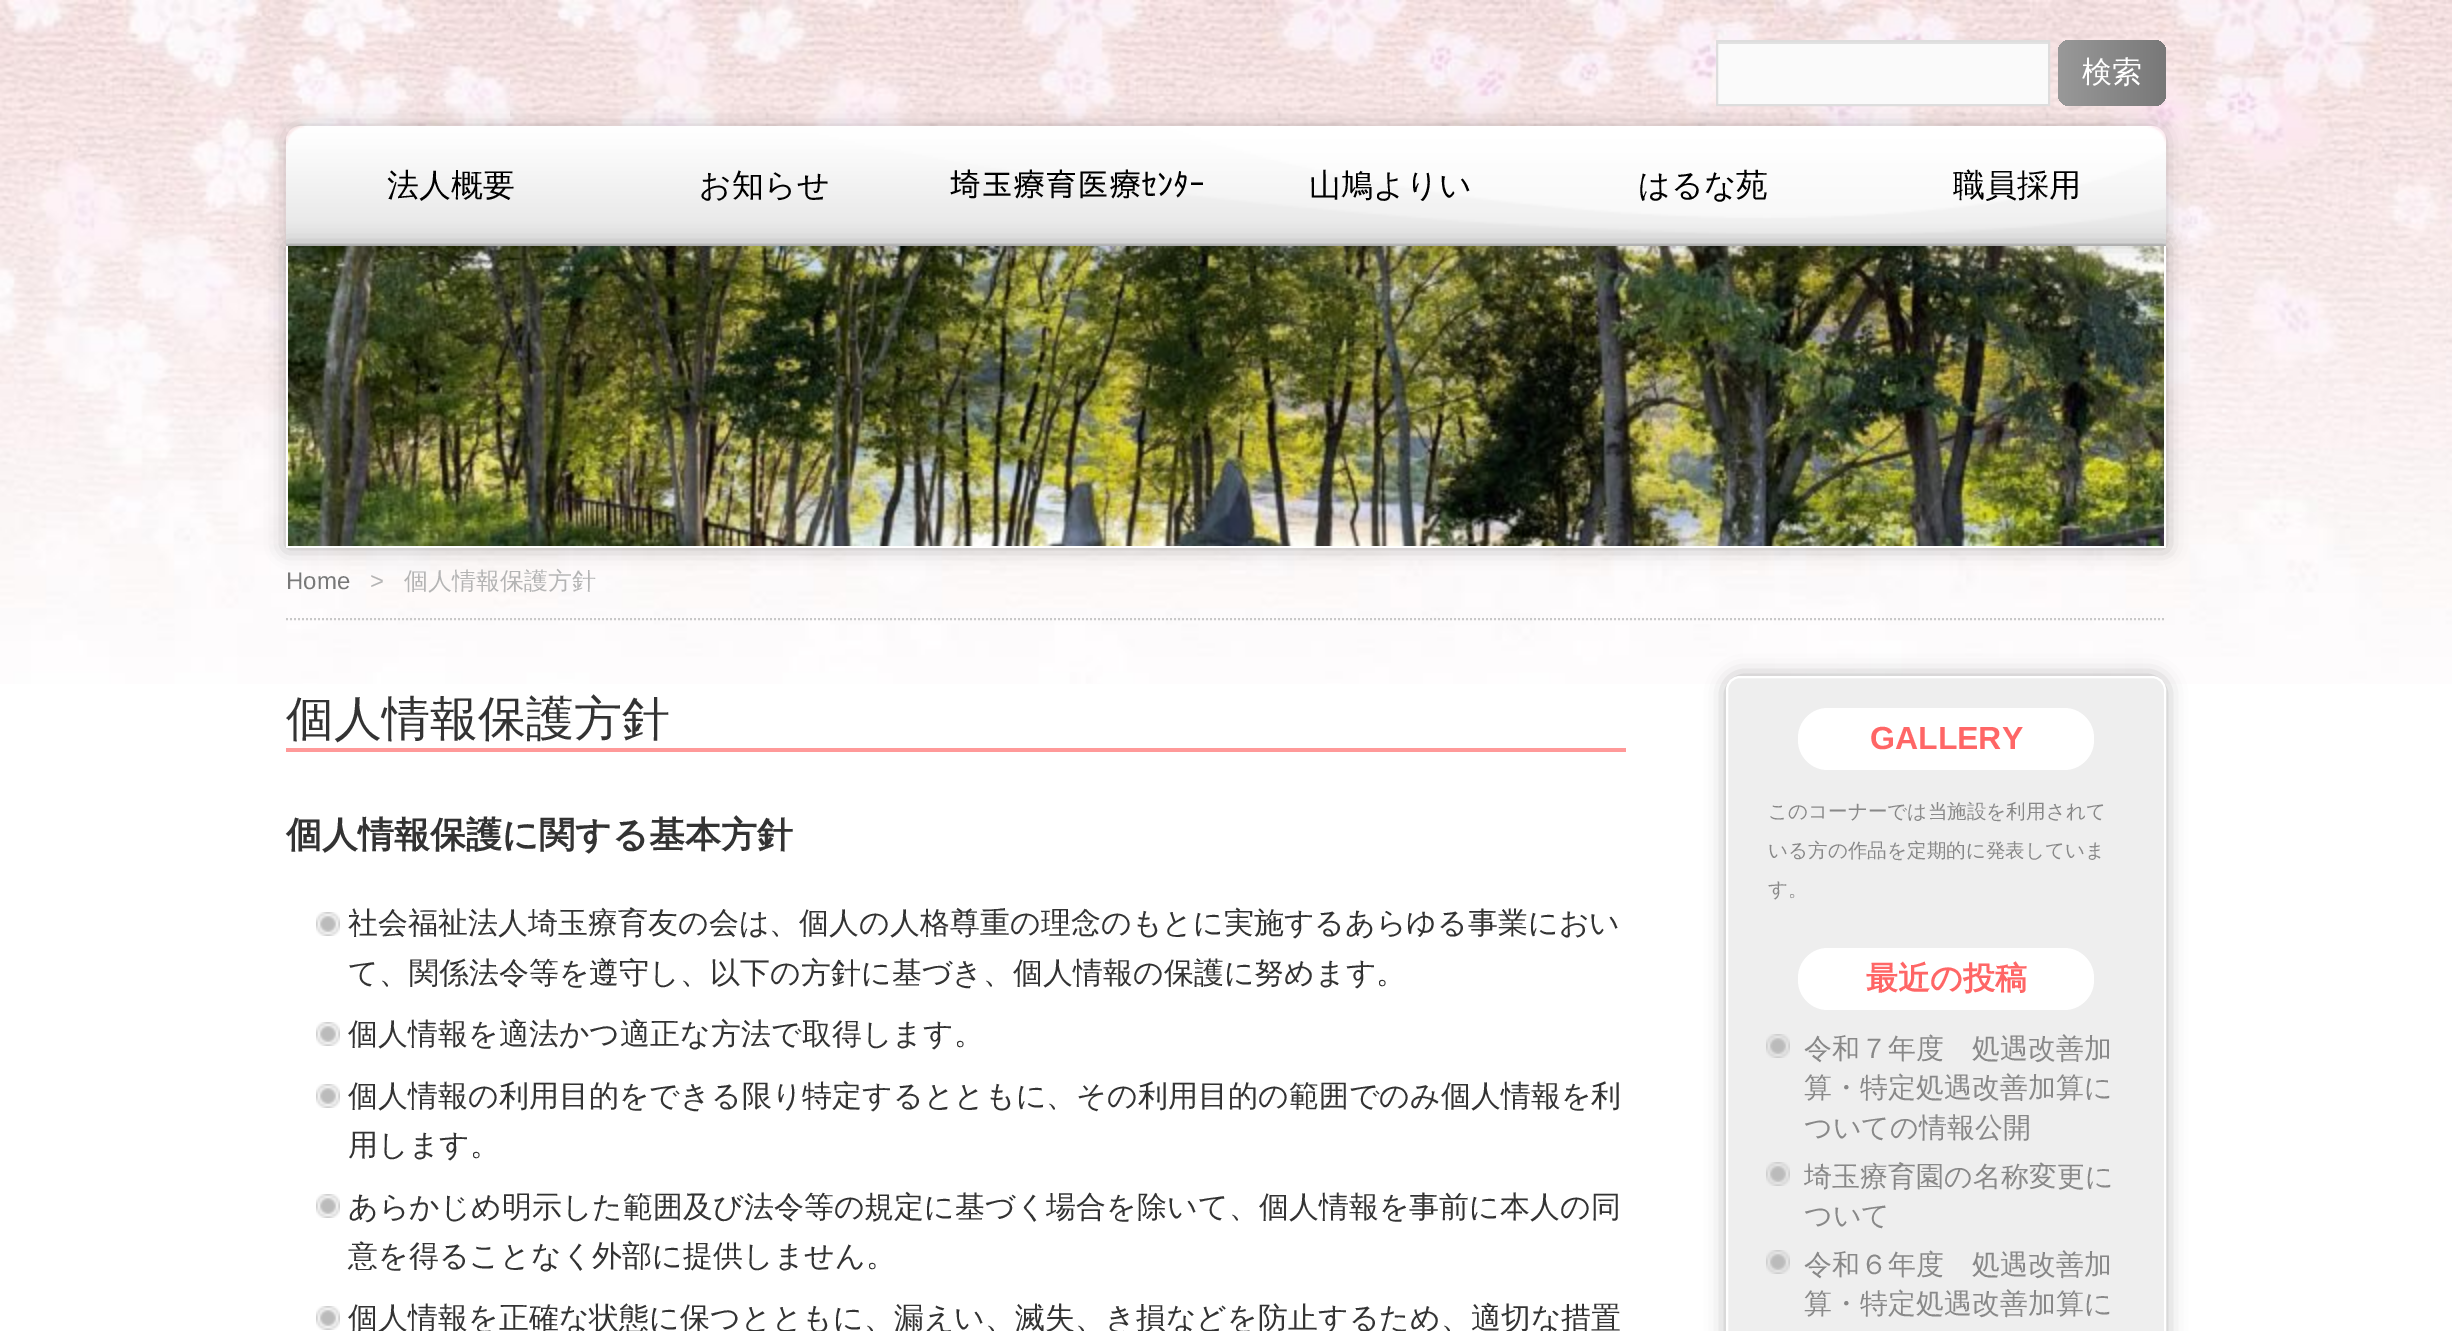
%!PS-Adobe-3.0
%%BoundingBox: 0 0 2452 1331
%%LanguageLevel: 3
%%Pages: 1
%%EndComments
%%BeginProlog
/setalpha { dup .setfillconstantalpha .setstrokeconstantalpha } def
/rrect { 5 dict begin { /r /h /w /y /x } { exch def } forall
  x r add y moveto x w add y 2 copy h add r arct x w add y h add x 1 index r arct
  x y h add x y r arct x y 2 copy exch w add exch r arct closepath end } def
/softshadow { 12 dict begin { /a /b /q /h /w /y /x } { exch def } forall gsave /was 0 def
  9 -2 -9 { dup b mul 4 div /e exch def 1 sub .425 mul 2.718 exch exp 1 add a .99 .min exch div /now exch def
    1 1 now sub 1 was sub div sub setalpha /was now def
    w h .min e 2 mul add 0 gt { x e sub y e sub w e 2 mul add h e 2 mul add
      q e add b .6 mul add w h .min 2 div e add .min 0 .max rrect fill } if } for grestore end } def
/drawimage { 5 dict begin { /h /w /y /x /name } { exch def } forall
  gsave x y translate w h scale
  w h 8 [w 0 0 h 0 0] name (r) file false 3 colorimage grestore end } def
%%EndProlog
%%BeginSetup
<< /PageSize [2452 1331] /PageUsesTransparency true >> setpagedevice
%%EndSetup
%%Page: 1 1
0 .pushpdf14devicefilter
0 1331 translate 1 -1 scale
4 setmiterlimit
1 setgray
0 0 2452 1331 rectfill
(images/1.raw) 0 0 2452 684 drawimage
(images/3.raw) 288 246 1876 300 drawimage
gsave
newpath 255 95 moveto 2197 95 lineto 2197 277 lineto 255 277 lineto closepath 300 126 moveto 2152 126 lineto 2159.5 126 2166 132.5 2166 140 curveto 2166 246 lineto 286 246 lineto 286 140 lineto 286 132.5 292.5 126 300 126 curveto closepath eoclip newpath
0 setgray
286 126 1880 120 14 10 0.2 softshadow
grestore
0.98 setgray
1718 44 330 60 rectfill
0.882 setgray
1718 42 330 2 rectfill
0.867 setgray
2 setlinewidth
1717 41 332 64 rectstroke
gsave 2058 40 108 66 12 rrect clip newpath
<< /ShadingType 2 /ColorSpace /DeviceRGB /Coords [2166 73 2058 73] /Extend [true true] /Function << /FunctionType 2 /Domain [0 1] /C0 [0.471 0.471 0.471] /C1 [0.6 0.6 0.6] /N 1 >> >> shfill grestore
(images/2.raw) 286 126 1880 120 drawimage
gsave
newpath 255 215 moveto 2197 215 lineto 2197 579 lineto 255 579 lineto closepath 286 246 moveto 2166 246 lineto 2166 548 lineto 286 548 lineto closepath eoclip newpath
0 setgray
286 246 1880 302 0 10 0.3 softshadow
grestore
1 setgray
2164 246 2 302 rectfill
286 546 1880 2 rectfill
286 246 2 302 rectfill
0.784 setgray
[2 2] 0 setdash
newpath 286 619 moveto 2166 619 lineto stroke
1 0.6 0.6 setrgbcolor
286 748 1340 4 rectfill
(images/4.raw) 316 912 24 24 drawimage
(images/4.raw) 316 1022 24 24 drawimage
(images/4.raw) 316 1084 24 24 drawimage
(images/4.raw) 316 1194 24 24 drawimage
(images/4.raw) 316 1306 24 24 drawimage
0 setgray
1726 676 440 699 14 10 0.3 softshadow
0.933 setgray
1727 677 438 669 13 rrect gsave fill grestore
1 setgray
[] 0 setdash
stroke
1798 708 296 62 30 rrect fill
1798 948 296 62 30 rrect fill
(images/5.raw) 1766 1034 24 24 drawimage
(images/5.raw) 1766 1162 24 24 drawimage
(images/5.raw) 1766 1250 24 24 drawimage
/WenQuanYiZenHei-Medium [30 0 0 -30 0 0] selectfont
2082 82 moveto (検索) show
/WenQuanYiZenHei-Medium [32 0 0 -32 0 0] selectfont
0 setgray
387 196 moveto (法人概要) show
699 196 moveto (お知らせ) show
/IPAPGothic-Regular [32 0 0 -32 0 0] selectfont
949 196 moveto (埼玉療育医療ｾﾝﾀｰ) show
/WenQuanYiZenHei-Medium [32 0 0 -32 0 0] selectfont
1309 196 moveto (山鳩よりい) show
1638 196 moveto (はるな苑) show
1953 196 moveto (職員採用) show
/LiberationSans-Regular [24 0 0 -24 0 0] selectfont
0.471 setgray
286 589 moveto (Home) show
0.706 setgray
370 589 moveto (>) show
/WenQuanYiZenHei-Medium [24 0 0 -24 0 0] selectfont
404 589 moveto (個人情報保護方針) show
/WenQuanYiZenHei-Medium [48 0 0 -48 0 0] selectfont
0.2 setgray
286 735 moveto (個人情報保護方針) show
/WenQuanYiZenHei-Bold [36 0 0 -36 0 0] selectfont
286 847 moveto (個人情報保護に関する基本方針) show
/WenQuanYiZenHei-Medium [30 0 0 -30 0 0] selectfont
348 933 moveto (社会福祉法人埼玉療育友の会は、個人の人格尊重の理念のもとに実施するあらゆる事業におい) show
348 983 moveto (て、関係法令等を遵守し、以下の方針に基づき、個人情報の保護に努めます。) show
348 1044 moveto (個人情報を適法かつ適正な方法で取得します。) show
348 1106 moveto (個人情報の利用目的をできる限り特定するとともに、その利用目的の範囲でのみ個人情報を利) show
348 1155 moveto (用します。) show
348 1217 moveto (あらかじめ明示した範囲及び法令等の規定に基づく場合を除いて、個人情報を事前に本人の同) show
348 1266 moveto (意を得ることなく外部に提供しません。) show
348 1328 moveto (個人情報を正確な状態に保つとともに、漏えい、滅失、き損などを防止するため、適切な措置) show
/LiberationSans-Bold [32 0 0 -32 0 0] selectfont
1 0.4 0.4 setrgbcolor
1870 749 moveto (GALLERY) show
/WenQuanYiZenHei-Medium [19.6 0 0 -19.6 0 0] selectfont
0.533 setgray
1768 818 moveto (このコーナーでは当施設を利用されて) show
1768 857 moveto (いる方の作品を定期的に発表していま) show
1768 896 moveto (す。) show
/WenQuanYiZenHei-Bold [32 0 0 -32 0 0] selectfont
1 0.4 0.4 setrgbcolor
1866 989 moveto (最近の投稿) show
/WenQuanYiZenHei-Medium [28 0 0 -28 0 0] selectfont
0.533 setgray
1804 1058 moveto (令和７年度　処遇改善加) show
1804 1097 moveto (算・特定処遇改善加算に) show
1804 1137 moveto (ついての情報公開) show
1804 1186 moveto (埼玉療育園の名称変更に) show
1804 1225 moveto (ついて) show
1804 1274 moveto (令和６年度　処遇改善加) show
1804 1313 moveto (算・特定処遇改善加算に) show
.poppdf14devicefilter showpage
%%EOF
